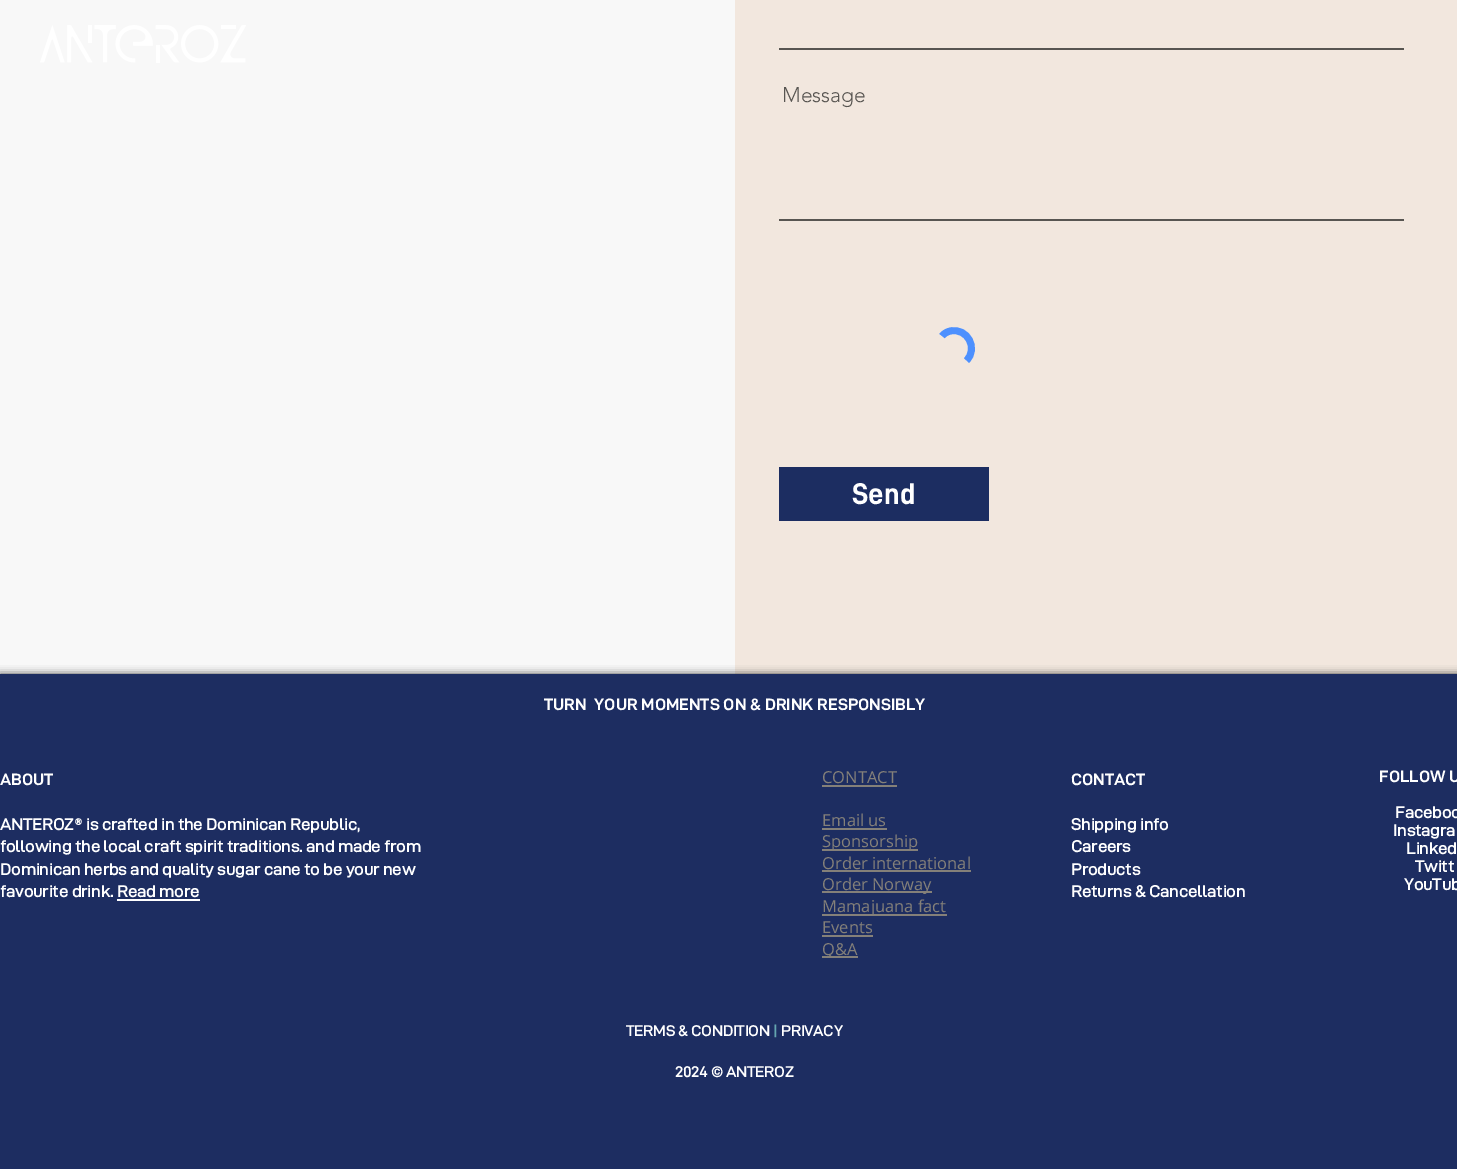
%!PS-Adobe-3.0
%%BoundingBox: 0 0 1457 1169
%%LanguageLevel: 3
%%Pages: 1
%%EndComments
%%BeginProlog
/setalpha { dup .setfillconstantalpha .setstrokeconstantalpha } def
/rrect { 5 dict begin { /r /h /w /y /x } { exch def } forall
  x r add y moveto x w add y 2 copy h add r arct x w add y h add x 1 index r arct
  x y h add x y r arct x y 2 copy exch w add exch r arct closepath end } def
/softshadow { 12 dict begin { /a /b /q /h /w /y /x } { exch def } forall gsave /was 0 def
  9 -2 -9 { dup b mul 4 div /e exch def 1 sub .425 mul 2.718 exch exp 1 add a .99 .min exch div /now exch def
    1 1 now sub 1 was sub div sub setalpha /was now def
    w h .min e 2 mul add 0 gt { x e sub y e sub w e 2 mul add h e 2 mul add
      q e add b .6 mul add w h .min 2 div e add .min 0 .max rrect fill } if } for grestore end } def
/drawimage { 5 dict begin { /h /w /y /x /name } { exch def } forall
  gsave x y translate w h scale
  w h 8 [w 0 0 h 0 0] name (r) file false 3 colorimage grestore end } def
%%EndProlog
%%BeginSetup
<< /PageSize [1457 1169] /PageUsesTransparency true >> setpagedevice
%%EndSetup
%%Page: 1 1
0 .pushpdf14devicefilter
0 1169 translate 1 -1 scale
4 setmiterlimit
0.973 setgray
0 0 1457 1169 rectfill
(images/1.raw) 40 25 206 38 drawimage
0.949 0.906 0.871 setrgbcolor
735 0 722 674 rectfill
0.345 0.333 0.318 setrgbcolor
779 48 625 2 rectfill
779 219 625 2 rectfill
0.302 0.565 0.996 setrgbcolor
6.9 setlinewidth
newpath 942 336 moveto 944 333.5 947.5 331.5 950.5 331 curveto 967.5 327.5 978.5 348.5 966.5 360.5 curveto stroke
0.11 0.176 0.38 setrgbcolor
779 467 210 54 rectfill
0 setgray
0 674 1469 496 0 4 0.7 softshadow
0.114 0.176 0.38 setrgbcolor
0 674 1457 495 rectfill
1 setgray
117 899 83 2 rectfill
0.518 0.502 0.475 setrgbcolor
822 785 75 2 rectfill
822 828 65 2 rectfill
822 849 96 2 rectfill
822 870 149 2 rectfill
822 891 110 2 rectfill
822 914 125 2 rectfill
822 935 51 2 rectfill
822 956 36 2 rectfill
/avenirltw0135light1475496-Light [21 0 0 -21 0 0] selectfont
0.345 0.333 0.318 setrgbcolor
782 102 moveto (Message) show
/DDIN-Bold [30 0 0 -30 0 0] selectfont
1 setgray
852 504 moveto (Send) show
/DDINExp-Bold [16.5 0 0 -16.5 0 0] selectfont
544 710 moveto (TURN  YOUR MOMENTS ON & DRINK RESPONSIBLY) show
/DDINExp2-Bold [16.5 0 0 -16.5 0 0] selectfont
0 785 moveto (ABOUT) show
/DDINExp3-Bold [16.5 0 0 -16.5 0 0] selectfont
0 830 moveto (ANTEROZ® is crafted in the Dominican Republic,) show
0 852 moveto (following the local craft spirit traditions. and made from) show
0 875 moveto (Dominican herbs and quality sugar cane to be your new) show
0 897 moveto (favourite drink. Read more) show
/OpenSans-Regular [16.5 0 0 -16.5 0 0] selectfont
0.518 0.502 0.475 setrgbcolor
822 783 moveto (CONTACT) show
822 826 moveto (Email us) show
822 847 moveto (Sponsorship) show
822 869 moveto (Order international) show
822 890 moveto (Order Norway) show
822 912 moveto (Mamajuana fact) show
822 933 moveto (Events) show
822 955 moveto (Q&A) show
/DDINExp2-Bold [16.5 0 0 -16.5 0 0] selectfont
1 setgray
1071 785 moveto (CONTACT) show
/DDINExp3-Bold [16.5 0 0 -16.5 0 0] selectfont
1071 830 moveto (Shipping info) show
1071 852 moveto (Careers) show
1071 875 moveto (Products) show
1071 897 moveto (Returns & Cancellation) show
/DDINExp2-Bold [16.5 0 0 -16.5 0 0] selectfont
1379 782 moveto (FOLLOW U) show
/DDINExp3-Bold [16.5 0 0 -16.5 0 0] selectfont
1395 818 moveto (Faceboo) show
1393 836 moveto (Instagra) show
1406 854 moveto (Linked) show
1415 872 moveto (Twitt) show
1404 890 moveto (YouTub) show
/DDINExp3-Bold [15 0 0 -15 0 0] selectfont
626 1036 moveto (TERMS & CONDITION) show
0.392 0.647 0.686 setrgbcolor
773 1036 moveto (|) show
1 setgray
781 1036 moveto (PRIVACY) show
675 1077 moveto (2024 © ANTEROZ) show
.poppdf14devicefilter showpage
%%EOF
